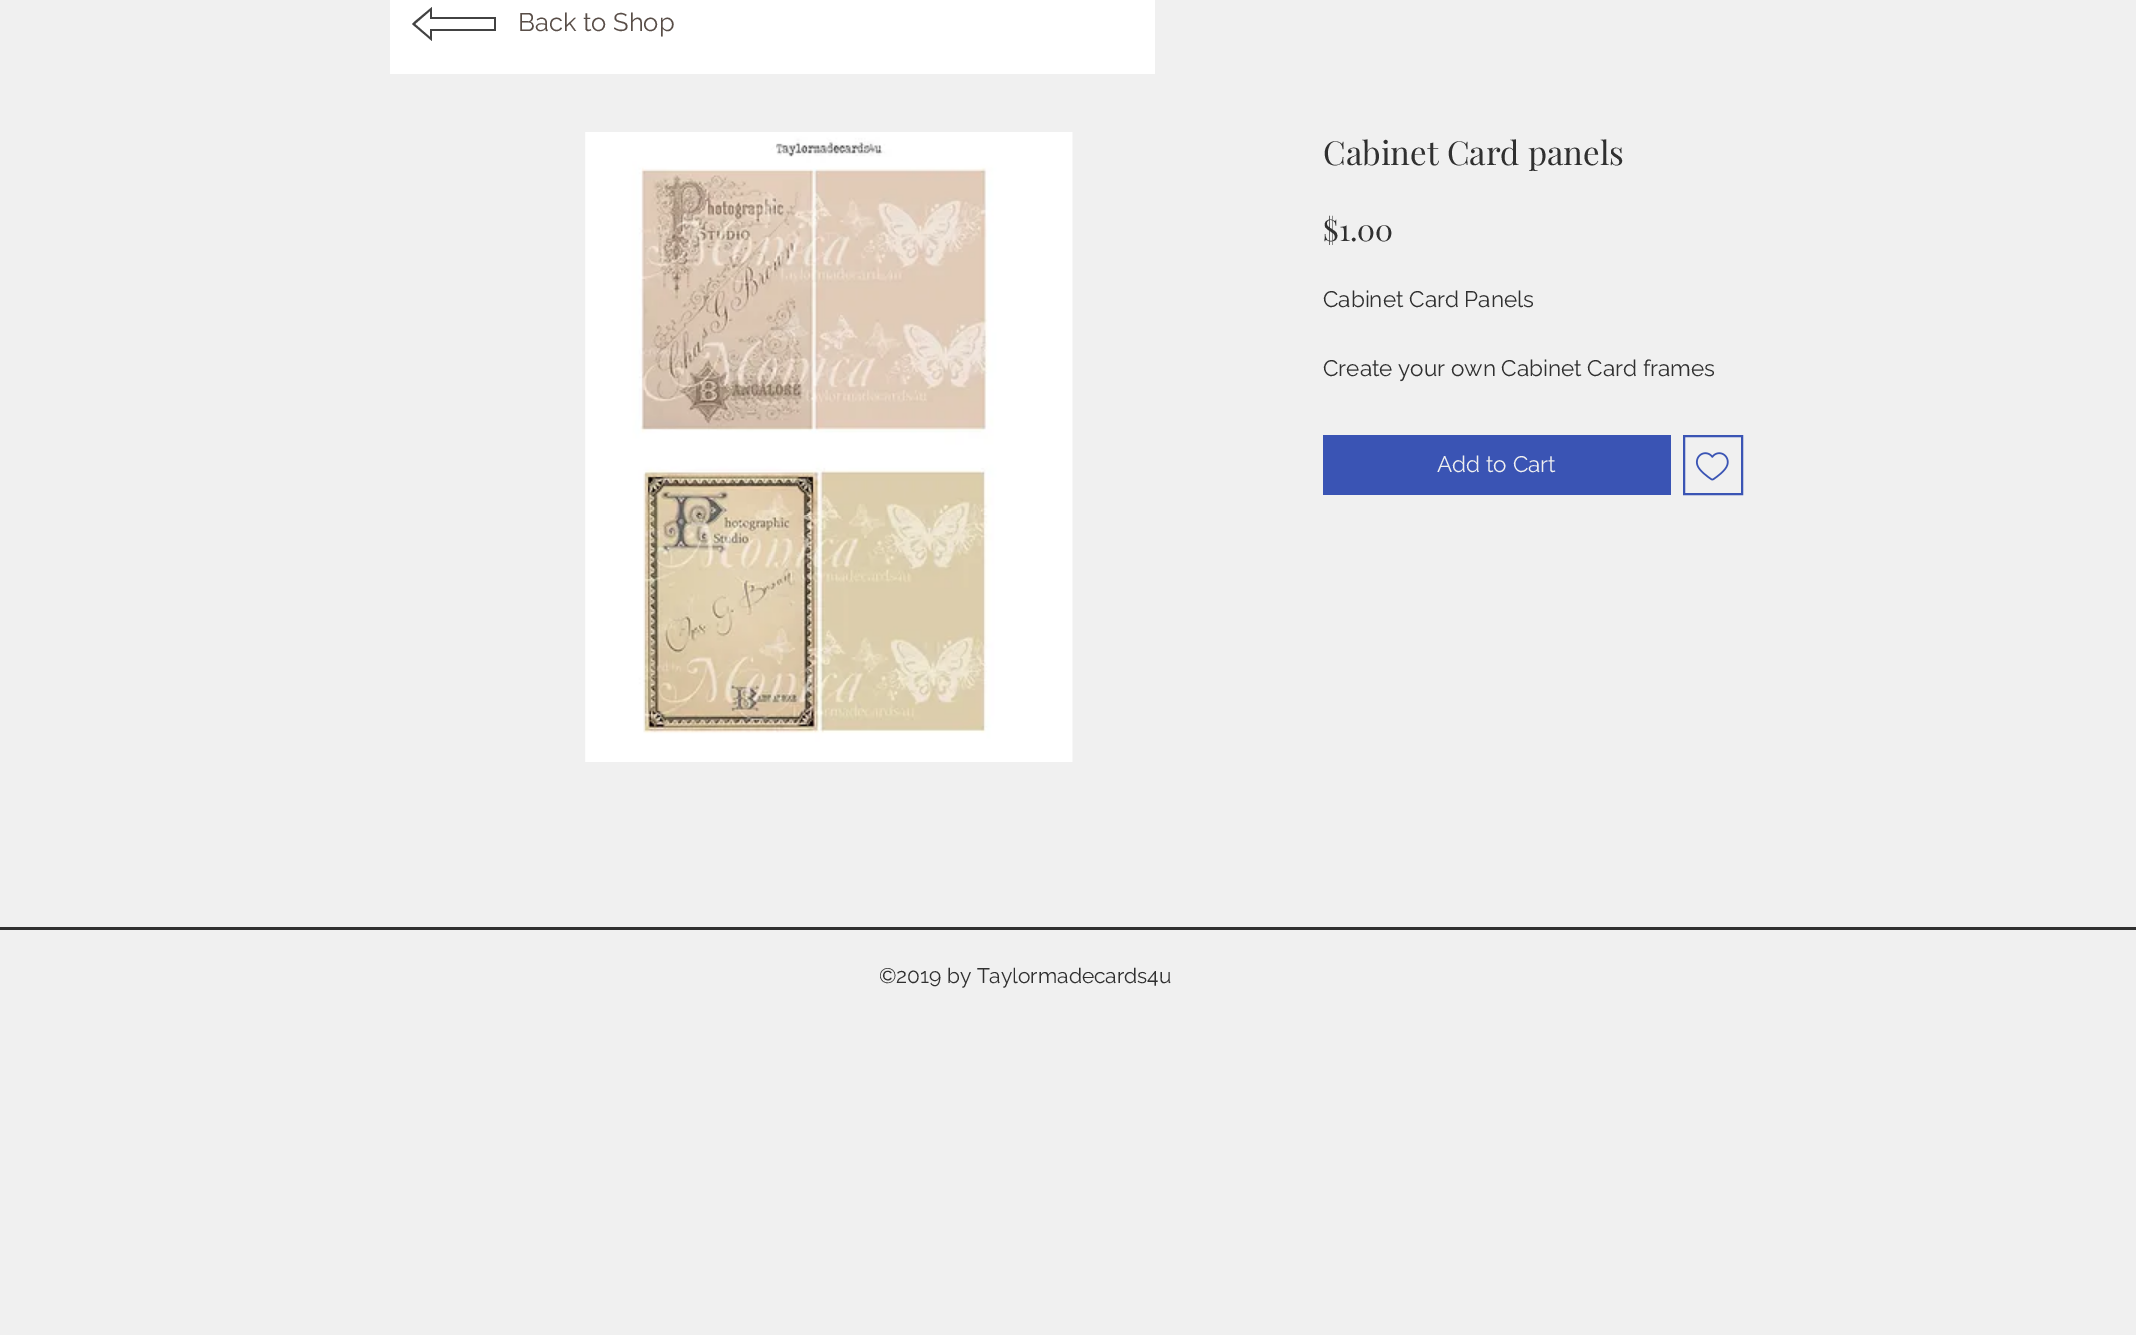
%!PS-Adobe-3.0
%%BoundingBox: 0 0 2136 1335
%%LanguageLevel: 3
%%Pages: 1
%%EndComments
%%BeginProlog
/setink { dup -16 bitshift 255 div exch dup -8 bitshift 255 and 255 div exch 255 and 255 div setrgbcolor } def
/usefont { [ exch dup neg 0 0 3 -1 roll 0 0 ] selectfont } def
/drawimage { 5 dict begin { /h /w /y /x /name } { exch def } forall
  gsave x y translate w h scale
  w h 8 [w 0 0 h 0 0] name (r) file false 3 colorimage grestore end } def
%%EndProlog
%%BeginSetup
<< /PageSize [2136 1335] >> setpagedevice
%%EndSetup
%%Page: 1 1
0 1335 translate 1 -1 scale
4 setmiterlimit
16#F0F0F0 setink
0 0 2136 1335 rectfill
16#FFFFFF setink
390 0 765 74 rectfill
16#424242 setink
414 22 moveto 412 24 lineto 432 41 lineto 432 31 lineto 496 31 lineto 496 17 lineto 432 17 lineto 432 7 lineto closepath 430 19 moveto 494 19 lineto 494 29 lineto 430 29 lineto 430 37 lineto 415 24 lineto 430 11 lineto closepath fill
/Raleway-Regular 25.5 usefont
16#594E48 setink
518 31 moveto (Back to Shop) show
(img1.raw) 585 132 488 630 drawimage
/PlayfairDisplay-Regular 33 usefont
16#303030 setink
1323 165 moveto (Cabinet Card panels) show
/PlayfairDisplay-Regular 30 usefont
1323 241 moveto ($1.00) show
/Raleway-Regular 22.5 usefont
1323 307 moveto (Cabinet Card Panels) show
1323 376 moveto (Create your own Cabinet Card frames) show
16#3A54B4 setink
1323 435 348 60 rectfill
16#F0F0F0 setink
1437 472 moveto (Add to Cart) show
16#3A54B4 setink
2 setlinewidth
1684 436 58 58 rectstroke
(img2.raw) 1695 452 34 29 drawimage
16#303030 setink
0 927 2136 3 rectfill
/Raleway-Regular 21 usefont
879 983 moveto (©2019 by Taylormadecards4u) show
showpage
%%EOF
